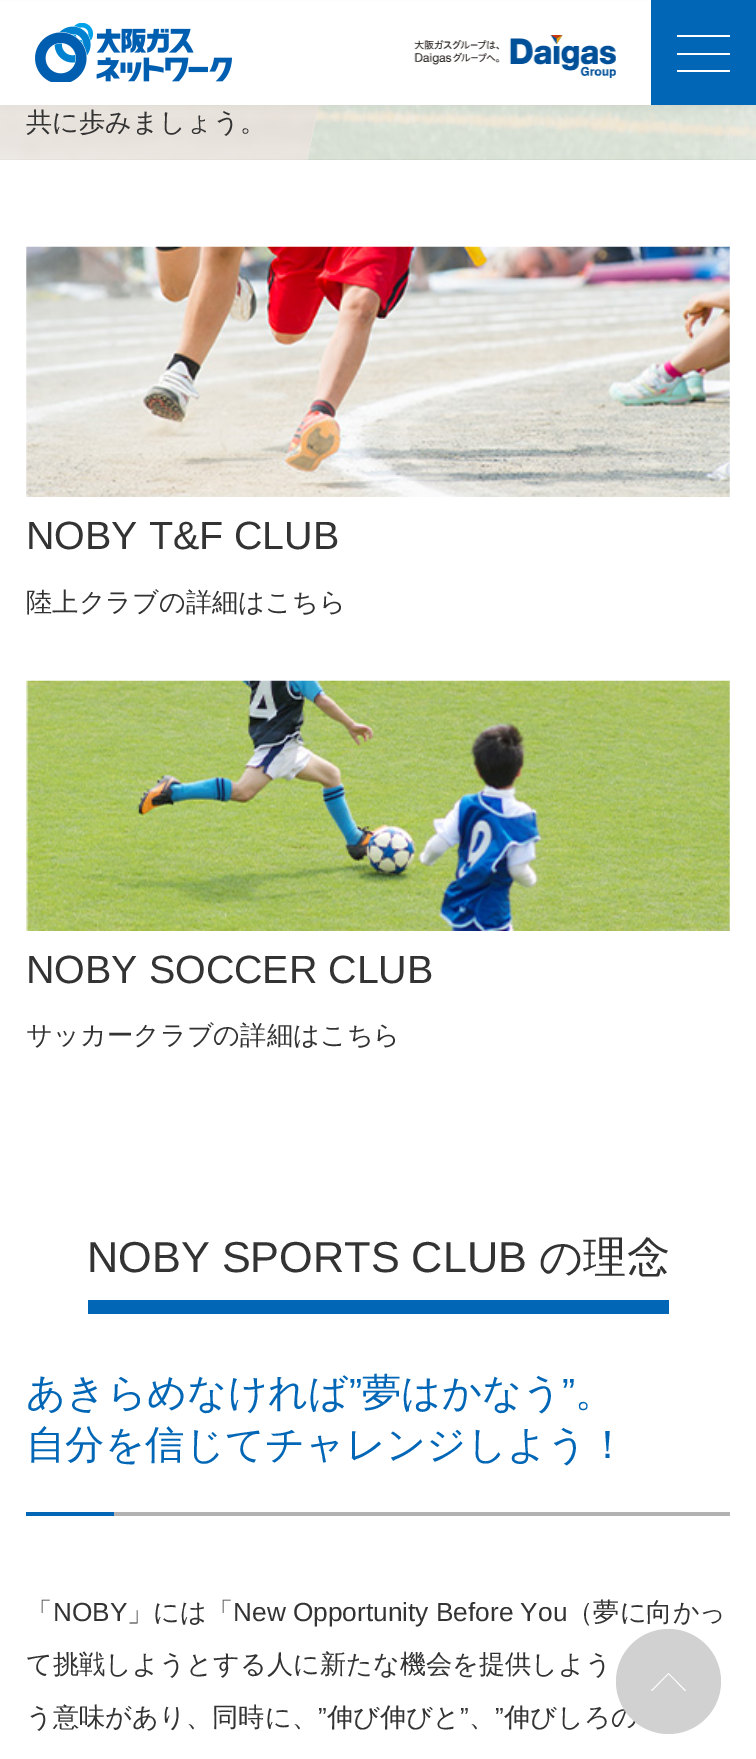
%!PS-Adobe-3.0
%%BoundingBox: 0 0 756 1759
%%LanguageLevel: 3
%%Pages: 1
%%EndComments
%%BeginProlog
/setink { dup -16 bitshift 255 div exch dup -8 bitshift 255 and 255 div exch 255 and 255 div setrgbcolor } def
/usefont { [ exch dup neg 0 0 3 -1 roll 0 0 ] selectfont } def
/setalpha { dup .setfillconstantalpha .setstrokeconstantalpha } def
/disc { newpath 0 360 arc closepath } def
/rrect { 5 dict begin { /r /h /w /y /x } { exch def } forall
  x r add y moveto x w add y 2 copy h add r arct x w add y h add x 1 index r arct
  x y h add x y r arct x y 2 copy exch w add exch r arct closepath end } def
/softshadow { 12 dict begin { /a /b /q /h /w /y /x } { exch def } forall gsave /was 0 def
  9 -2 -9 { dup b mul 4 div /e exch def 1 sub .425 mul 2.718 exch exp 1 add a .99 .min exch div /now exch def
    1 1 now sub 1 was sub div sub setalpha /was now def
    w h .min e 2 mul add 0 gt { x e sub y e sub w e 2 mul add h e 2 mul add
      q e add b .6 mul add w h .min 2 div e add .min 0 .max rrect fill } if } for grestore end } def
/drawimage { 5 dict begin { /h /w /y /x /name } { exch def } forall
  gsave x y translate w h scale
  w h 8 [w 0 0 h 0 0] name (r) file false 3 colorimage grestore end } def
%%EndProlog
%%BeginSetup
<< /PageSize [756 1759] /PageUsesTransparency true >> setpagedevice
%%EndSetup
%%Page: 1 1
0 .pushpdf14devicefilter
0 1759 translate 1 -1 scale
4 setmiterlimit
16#FFFFFF setink
0 0 756 1759 rectfill
(img3.raw) 0 105 756 55 drawimage
16#000000 setink
0 4 756 105 0 5 0.04 softshadow
16#FFFFFF setink
0 1 651 104 rectfill
(img1.raw) 35 23 198 59 drawimage
(img2.raw) 414 35 202 43 drawimage
[
    [651 0 105 105 16#0066B5]
    [677 35 53 2 16#FFFFFF]
    [677 53 53 2 16#FFFFFF]
    [677 70 53 2 16#FFFFFF]
] { aload pop setink rectfill } forall
/WenQuanYiZenHei-Medium 26.25 usefont
16#333333 setink
26 131 moveto (共に歩みましょう。) show
(img4.raw) 26 246 704 251 drawimage
/LiberationSans-Regular 39.4 usefont
26 549 moveto (NOBY T&F CLUB) show
/WenQuanYiZenHei-Medium 26.25 usefont
26 611 moveto (陸上クラブの詳細はこちら) show
(img5.raw) 26 680 704 251 drawimage
/LiberationSans-Regular 39.4 usefont
26 983 moveto (NOBY SOCCER CLUB) show
/WenQuanYiZenHei-Medium 26.25 usefont
26 1044 moveto (サッカークラブの詳細はこちら) show
16#0066B5 setink
88 1300 581 14 rectfill
/LiberationSans-Regular 43.25 usefont
16#333333 setink
87 1272 moveto (NOBY SPORTS CLUB) show
/WenQuanYiZenHei-Medium 43.25 usefont
539 1272 moveto (の理念) show
/WenQuanYiZenHei-Medium 39.4 usefont
16#0066B5 setink
26 1406 moveto (あきらめなければ) show
/LiberationSans-Regular 39.4 usefont
349 1406 moveto (”) show
/WenQuanYiZenHei-Medium 39.4 usefont
362 1406 moveto (夢はかなう) show
/LiberationSans-Regular 39.4 usefont
562 1406 moveto (”) show
/WenQuanYiZenHei-Medium 39.4 usefont
575 1406 moveto (。) show
26 1458 moveto (自分を信じてチャレンジしよう！) show
26 1512 88 4 rectfill
16#B2B2B2 setink
114 1512 616 4 rectfill
/WenQuanYiZenHei-Medium 26.25 usefont
16#333333 setink
26 1621 moveto (「) show
/LiberationSans-Regular 26.25 usefont
53 1621 moveto (NOBY) show
/WenQuanYiZenHei-Medium 26.25 usefont
127 1621 moveto (」には「) show
/LiberationSans-Regular 26.25 usefont
233 1621 moveto (New Opportunity Before You) show
/WenQuanYiZenHei-Medium 26.25 usefont
[
    [(（夢に向かっ) 567 1621]
    [(て挑戦しようとする人に新たな機会を提供しよう) 26 1673]
    [(う意味があり、同時に、) 26 1726]
] { aload pop moveto show } forall
/LiberationSans-Regular 26.25 usefont
318 1726 moveto (”) show
/WenQuanYiZenHei-Medium 26.25 usefont
327 1726 moveto (伸び伸びと) show
/LiberationSans-Regular 26.25 usefont
460 1726 moveto (”) show
495 1726 moveto (”) show
/WenQuanYiZenHei-Medium 26.25 usefont
504 1726 moveto (伸びしろの) show
469 1726 moveto (、) show
16#D1D1D1 setink
668.5 1681.5 52.5 disc fill
16#FFFFFF setink
685 1691 moveto 668.5 1674 lineto 652 1691 lineto 651 1690.5 lineto 668.5 1673 lineto 686 1690.5 lineto closepath fill
.poppdf14devicefilter showpage
%%EOF
